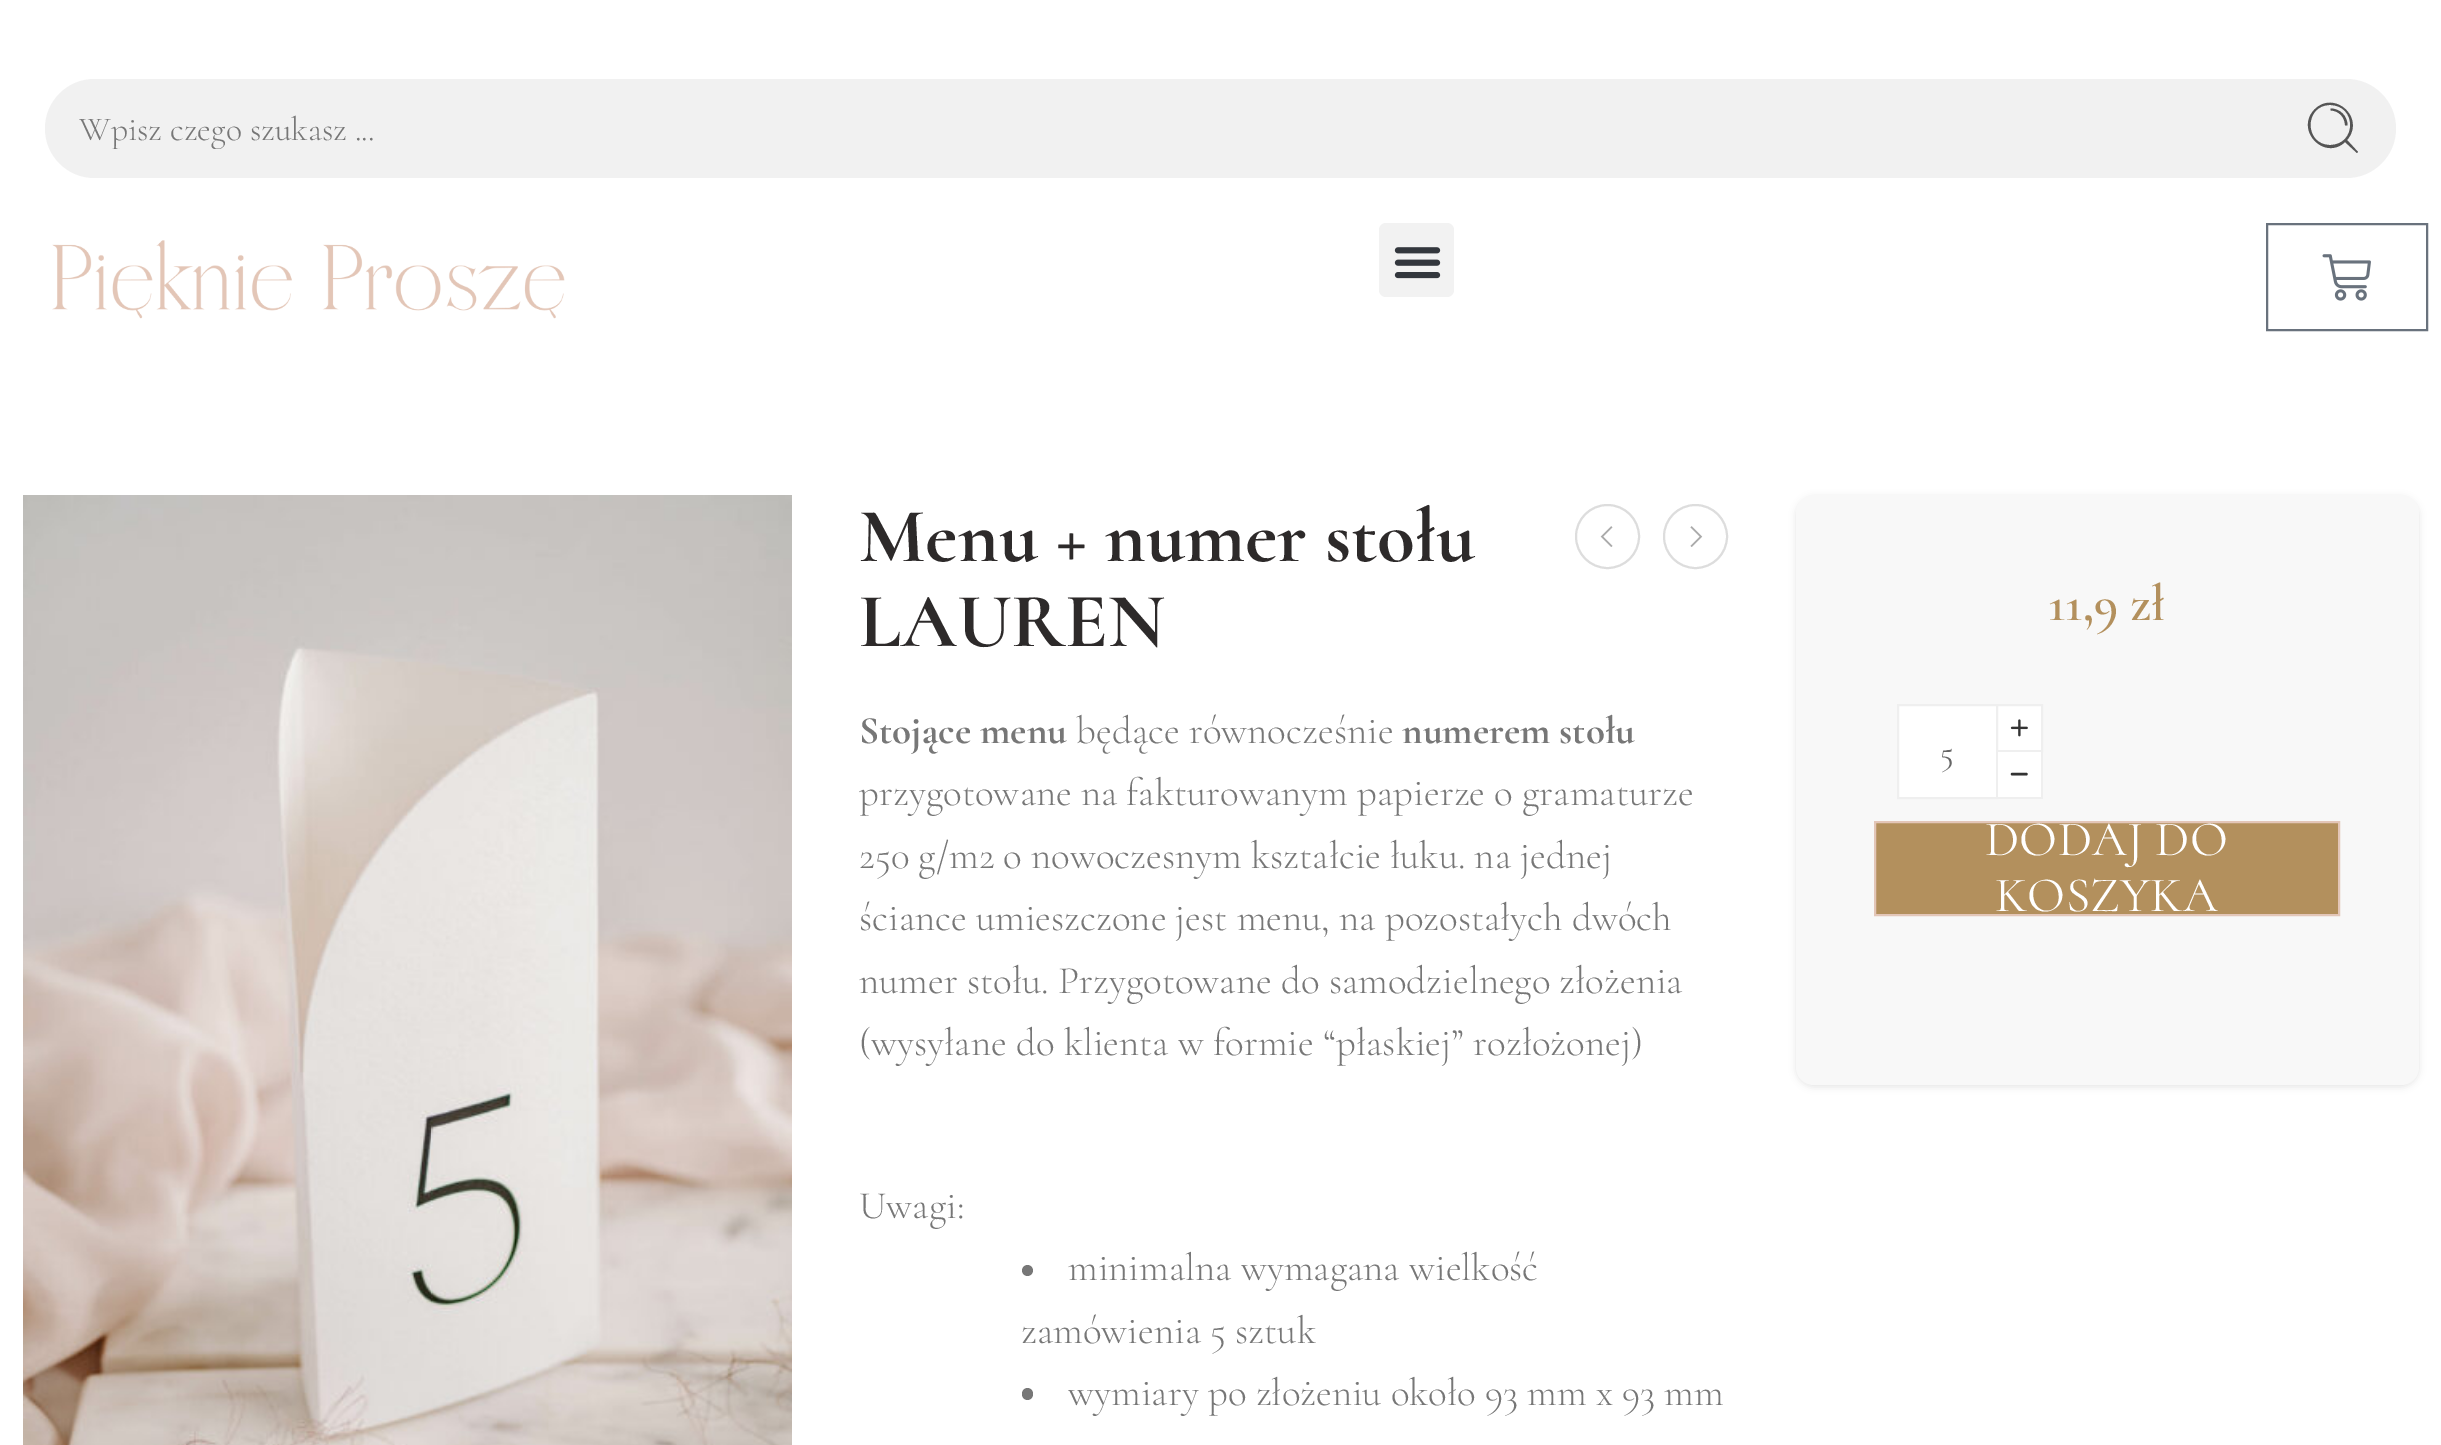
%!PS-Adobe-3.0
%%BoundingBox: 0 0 2441 1445
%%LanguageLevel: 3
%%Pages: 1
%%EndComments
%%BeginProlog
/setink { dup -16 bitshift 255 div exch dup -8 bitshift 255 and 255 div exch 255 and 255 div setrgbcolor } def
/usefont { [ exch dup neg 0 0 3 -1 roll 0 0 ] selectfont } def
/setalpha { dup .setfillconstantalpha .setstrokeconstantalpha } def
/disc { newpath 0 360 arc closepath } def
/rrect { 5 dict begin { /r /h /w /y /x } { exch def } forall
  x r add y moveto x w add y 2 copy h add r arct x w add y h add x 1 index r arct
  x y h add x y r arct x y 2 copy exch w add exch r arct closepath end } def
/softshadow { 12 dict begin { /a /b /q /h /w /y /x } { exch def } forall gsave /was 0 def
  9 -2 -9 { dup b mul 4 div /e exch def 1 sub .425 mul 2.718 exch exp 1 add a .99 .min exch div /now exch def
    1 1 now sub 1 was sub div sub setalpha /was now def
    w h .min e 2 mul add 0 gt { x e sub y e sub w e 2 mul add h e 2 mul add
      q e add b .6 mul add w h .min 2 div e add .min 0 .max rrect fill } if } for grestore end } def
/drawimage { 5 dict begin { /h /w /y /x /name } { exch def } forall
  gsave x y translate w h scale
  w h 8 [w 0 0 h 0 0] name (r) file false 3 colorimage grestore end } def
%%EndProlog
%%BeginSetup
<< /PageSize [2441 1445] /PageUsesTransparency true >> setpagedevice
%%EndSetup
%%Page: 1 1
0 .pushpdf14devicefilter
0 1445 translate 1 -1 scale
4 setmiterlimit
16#FFFFFF setink
0 0 2441 1445 rectfill
16#F1F1F1 setink
45 79 2351 99 49.5 rrect fill
gsave
79 108 2160 41 rectclip
/Cormorant-Light 33.75 usefont
16#777777 setink
79 140 moveto (Wpisz czego szukasz ...) show
grestore
16#555555 setink
2358 152 moveto 2347 140 lineto 2366 118 2334 89 2314 110 curveto 2295 131 2325 161 2345 142 curveto 2357 153 lineto closepath 2330 145 moveto 2304 145 2304 105 2330 105 curveto 2357 105 2357 145 2330 145 curveto closepath fill
2330.5 108.5 moveto 2330.5 110.5 lineto 2338.5 110.5 2345 117 2345 125.5 curveto 2347.5 125.5 lineto 2347.5 116 2340 108.5 2330.5 108.5 curveto closepath fill
(img1.raw) 52 240 513 79 drawimage
16#F2F2F2 setink
1379 223 75 74 7 rrect fill
(img2.raw) 1394 247 47 32 drawimage
16#69727D setink
2 setlinewidth
2267 224 160 106 rectstroke
(img3.raw) 2322 254 49 47 drawimage
(img4.raw) 23 495 769 950 drawimage
/Cormorant-Bold 77.5 usefont
16#2D2A2A setink
859 561 moveto (Menu + numer stołu) show
859 646 moveto (LAUREN) show
16#DDDDDD setink
1607.5 536.5 31.5 disc stroke
(img5.raw) 1600 526 13 21 drawimage
1695.5 536.5 31.5 disc stroke
(img6.raw) 1690 526 13 21 drawimage
/CormorantGaramond-Bold 39 usefont
16#777777 setink
859 743 moveto (Stojące menu) show
/CormorantGaramond-Light 39 usefont
1076 743 moveto (będące równocześnie) show
/CormorantGaramond-Bold 39 usefont
1402 743 moveto (numerem stołu) show
/CormorantGaramond-Light 39 usefont
[
    [(przygotowane na fakturowanym papierze o gramaturze) 859 805]
    [(250 g/m2 o nowoczesnym kształcie łuku. na jednej) 859 868]
    [(ściance umieszczone jest menu, na pozostałych dwóch) 859 930]
    [(numer stołu. Przygotowane do samodzielnego złożenia) 859 993]
    [(\(wysyłane do klienta w formie “płaskiej” rozłożonej\)) 859 1055]
    [(Uwagi:) 859 1218]
] { aload pop moveto show } forall
1027.5 1270.5 5.5 disc fill
1068 1280 moveto (minimalna wymagana wielkość) show
1021 1343 moveto (zamówienia 5 sztuk) show
1022 1388 11 12 5.5 rrect fill
1068 1405 moveto (wymiary po złożeniu około 93 mm x 93 mm) show
16#000000 setink
1796 497 623 590 18 3.5 0.1 softshadow
16#F8F8F8 setink
1796 495 623 590 18 rrect fill
/Cormorant-SemiBold 52 usefont
16#B3905D setink
2048 620 moveto (11,9 zł) show
16#FFFFFF setink
1898 705 moveto 1997 705 lineto 1997 798 lineto 1898 798 lineto closepath gsave fill grestore
16#EFEFEF setink
stroke
16#FFFFFF setink
1997 705 moveto 2042 705 lineto 2042 751 lineto 1997 751 lineto closepath gsave fill grestore
16#EFEFEF setink
stroke
(img7.raw) 2010 719 18 18 drawimage
/Cormorant-Regular 33.75 usefont
16#666666 setink
1940 763 moveto (5) show
[
    [1998 752 43 45 16#FFFFFF]
    [2041 752 2 47 16#EFEFEF]
    [1996 797 47 2 16#EFEFEF]
] { aload pop setink rectfill } forall
16#333333 setink
2.4 setlinewidth
1 setlinecap
1 setlinejoin
2012 774 moveto 2026.5 774 lineto stroke
16#B3905D setink
1875 822 moveto 2339 822 lineto 2339 915 lineto 1875 915 lineto closepath gsave fill grestore
16#E3C6B8 setink
2 setlinewidth
0 setlinecap
0 setlinejoin
stroke
/Cormorant-Regular 49.5 usefont
16#FFFFFF setink
1985 855 moveto 0.25 0 (DODAJ DO) ashow
1995 911 moveto 0.25 0 (KOSZYKA) ashow
.poppdf14devicefilter showpage
%%EOF
